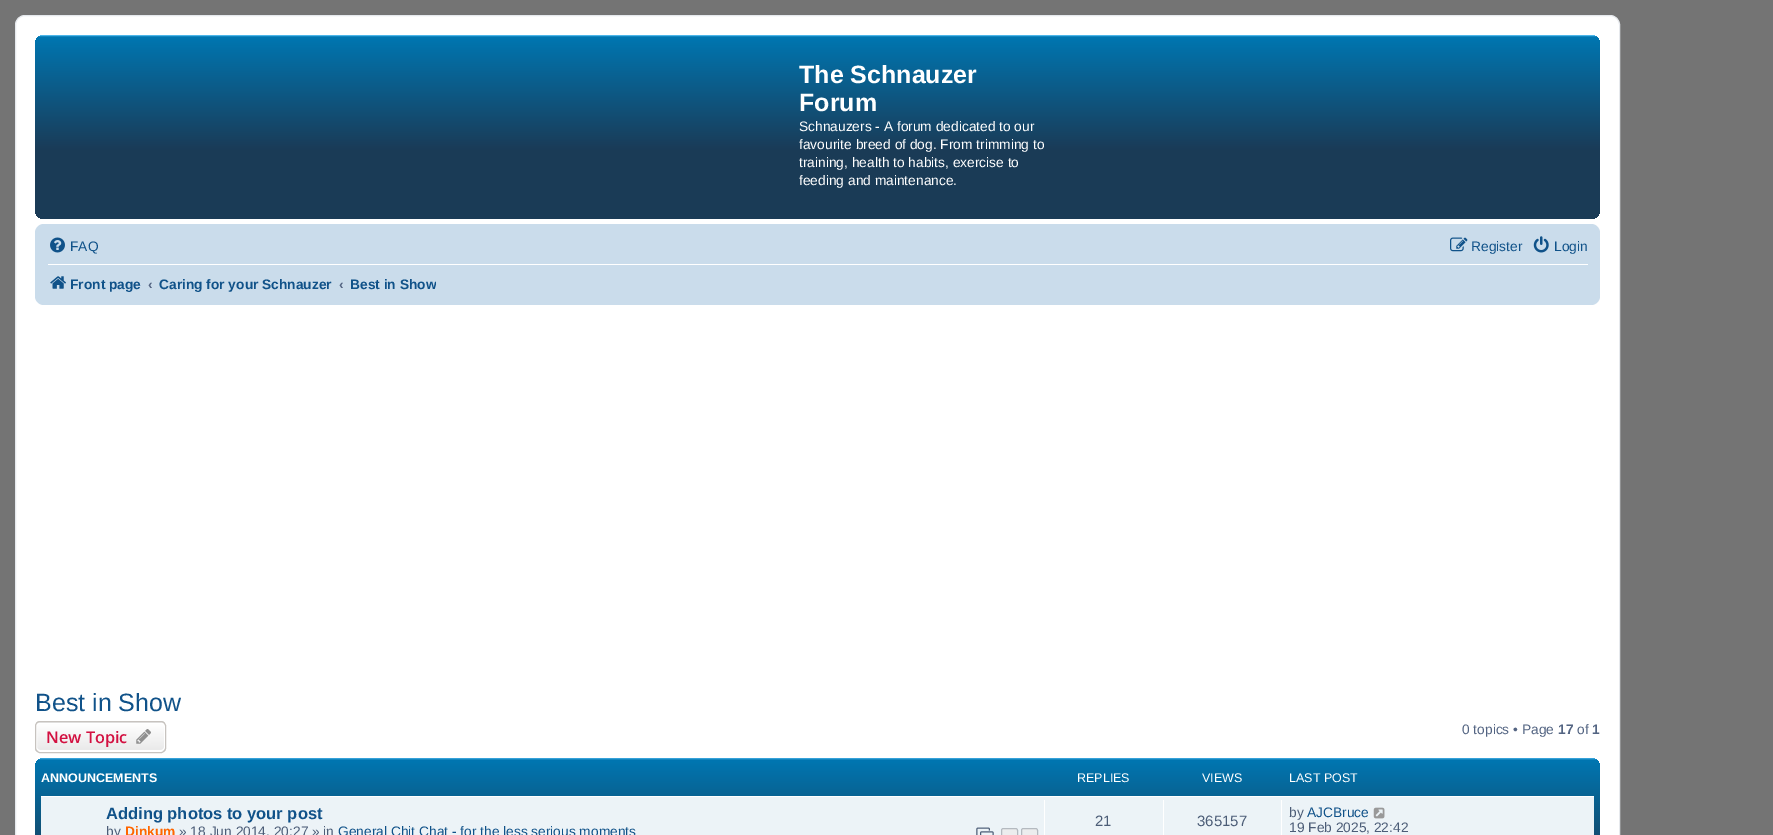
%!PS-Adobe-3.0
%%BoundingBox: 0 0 1773 835
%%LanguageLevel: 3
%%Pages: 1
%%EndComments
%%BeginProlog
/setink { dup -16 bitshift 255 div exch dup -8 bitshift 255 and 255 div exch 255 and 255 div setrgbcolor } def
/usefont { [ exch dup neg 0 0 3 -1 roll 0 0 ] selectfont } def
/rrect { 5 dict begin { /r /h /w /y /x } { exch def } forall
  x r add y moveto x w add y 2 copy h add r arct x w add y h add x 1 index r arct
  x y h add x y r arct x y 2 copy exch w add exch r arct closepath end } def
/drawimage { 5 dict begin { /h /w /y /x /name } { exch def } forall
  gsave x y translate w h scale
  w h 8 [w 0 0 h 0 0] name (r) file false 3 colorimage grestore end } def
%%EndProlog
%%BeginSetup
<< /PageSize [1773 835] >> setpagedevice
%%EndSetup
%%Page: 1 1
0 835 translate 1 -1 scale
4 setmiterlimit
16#747474 setink
0 0 1773 835 rectfill
16#FFFFFF setink
15.5 15.5 1604 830 9.5 rrect gsave fill grestore
16#E6E9ED setink
stroke
gsave 35 35 1565 184 9 rrect clip newpath
<< /ShadingType 2 /ColorSpace /DeviceRGB /Coords [818 35 818 219] /Extend [true true] /Function << /FunctionType 3 /Domain [0 1] /Functions [<< /FunctionType 2 /Domain [0 1] /C0 [0.416 0.808 1] /C1 [0 0.463 0.694] /N 1 >> << /FunctionType 2 /Domain [0 1] /C0 [0 0.463 0.694] /C1 [0.102 0.231 0.337] /N 1 >> << /FunctionType 2 /Domain [0 1] /C0 [0.102 0.231 0.337] /C1 [0.102 0.231 0.337] /N 1 >>] /Bounds [0.01 0.63] /Encode [0 1 0 1 0 1] >> >> shfill grestore
/LiberationSans-Bold 25 usefont
16#FFFFFF setink
799 83 moveto (The Schnauzer) show
799 111 moveto (Forum) show
/LiberationSans-Regular 13.75 usefont
[
    [(Schnauzers - A forum dedicated to our) 799 131]
    [(favourite breed of dog. From trimming to) 799 149]
    [(training, health to habits, exercise to) 799 167]
    [(feeding and maintenance.) 799 185]
] { aload pop moveto show } forall
16#CADCEB setink
35 224 1565 81 9 rrect fill
(img1.raw) 50 237 15 16 drawimage
16#105289 setink
70 251 moveto (FAQ) show
(img2.raw) 1450 237 18 15 drawimage
1471 251 moveto (Register) show
(img3.raw) 1533 236 16 17 drawimage
1554 251 moveto (Login) show
16#FFFFFF setink
48 264 1540 1 rectfill
(img4.raw) 50 276 16 13 drawimage
/LiberationSans-Bold 13.75 usefont
16#105289 setink
70 289 moveto (Front page) show
16#536482 setink
148 289 moveto (‹) show
16#105289 setink
159 289 moveto (Caring for your Schnauzer) show
16#536482 setink
339 289 moveto (‹) show
gsave
350 269 86 30 rectclip
16#105289 setink
350 289 moveto (Best in Show) show
grestore
/LiberationSans-Regular 25 usefont
16#105289 setink
35 711 moveto (Best in Show) show
gsave
35 721 131 32 5 rrect clip newpath
gsave 35 721 moveto 166 721 lineto 166 723 lineto 35 723 lineto closepath clip newpath
<< /ShadingType 2 /ColorSpace /DeviceRGB /Coords [101 694 101 723] /Extend [true true] /Function << /FunctionType 2 /Domain [0 1] /C0 [1 1 1] /C1 [0.914 0.914 0.914] /N 1 >> >> shfill grestore
gsave 35 723 moveto 166 723 lineto 166 751 lineto 35 751 lineto closepath clip newpath
<< /ShadingType 2 /ColorSpace /DeviceRGB /Coords [101 723 101 751] /Extend [true true] /Function << /FunctionType 2 /Domain [0 1] /C0 [1 1 1] /C1 [0.914 0.914 0.914] /N 1 >> >> shfill grestore
grestore
16#FFFFFF setink
36.5 723.5 128 27 3.5 rrect stroke
16#C7C3BF setink
35.5 721.5 130 31 4.5 rrect stroke
/OpenSans-SemiBold 16.25 usefont
16#D31141 setink
46 743 moveto (New Topic) show
(img5.raw) 136 729 15 15 drawimage
/LiberationSans-Regular 13.75 usefont
16#536482 setink
1462 734 moveto (0 topics • Page) show
/LiberationSans-Bold 13.75 usefont
1558 734 moveto (17) show
/LiberationSans-Regular 13.75 usefont
1577 734 moveto (of) show
/LiberationSans-Bold 13.75 usefont
1592 734 moveto (1) show
gsave 35 758 1565 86 9 rrect clip newpath
<< /ShadingType 2 /ColorSpace /DeviceRGB /Coords [818 757 818 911] /Extend [true true] /Function << /FunctionType 3 /Domain [0 1] /Functions [<< /FunctionType 2 /Domain [0 1] /C0 [0.416 0.808 1] /C1 [0 0.463 0.694] /N 1 >> << /FunctionType 2 /Domain [0 1] /C0 [0 0.463 0.694] /C1 [0.102 0.231 0.337] /N 1 >> << /FunctionType 2 /Domain [0 1] /C0 [0.102 0.231 0.337] /C1 [0.102 0.231 0.337] /N 1 >>] /Bounds [0.02 0.75] /Encode [0 1 0 1 0 1] >> >> shfill grestore
/LiberationSans-Bold 12.5 usefont
16#FFFFFF setink
41 782 moveto (ANNOUNCEMENTS) show
/LiberationSans-Regular 12.5 usefont
[
    [(REPLIES) 1077 782]
    [(VIEWS) 1202 782]
    [(LAST POST) 1289 782]
] { aload pop moveto show } forall
16#ECF3F7 setink
41 797 1553 38 rectfill
16#FFFFFF setink
41 796 1553 1 rectfill
/LiberationSans-Bold 16.5 usefont
16#105289 setink
106 819 moveto (Adding photos to your post) show
/LiberationSans-Regular 13.75 usefont
16#4C5D77 setink
106 836 moveto (by) show
/LiberationSans-Bold 13.75 usefont
16#FF6600 setink
125 836 moveto (Dinkum) show
/LiberationSans-Regular 13.75 usefont
16#4C5D77 setink
179 836 moveto (» 18 Jun 2014, 20:27 » in) show
16#105289 setink
338 836 moveto (General Chit Chat - for the less serious moments) show
(img6.raw) 976 827 18 8 drawimage
16#ECEDEE setink
1001.5 828.5 16 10 2 rrect gsave fill grestore
16#B4BAC0 setink
stroke
16#ECEDEE setink
1021.5 828.5 16 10 2 rrect gsave fill grestore
16#B4BAC0 setink
stroke
16#FFFFFF setink
1044 800 1 35 rectfill
/LiberationSans-Regular 15 usefont
16#4C5D77 setink
1095 826 moveto (21) show
16#FFFFFF setink
1163 800 1 35 rectfill
16#4C5D77 setink
1197 826 moveto (365157) show
16#FFFFFF setink
1281 800 1 35 rectfill
/LiberationSans-Regular 13.75 usefont
16#4C5D77 setink
1289 817 moveto (by) show
16#105289 setink
1307 817 moveto (AJCBruce) show
(img7.raw) 1373 807 12 12 drawimage
16#4C5D77 setink
1289 832 moveto (19 Feb 2025, 22:42) show
showpage
%%EOF
